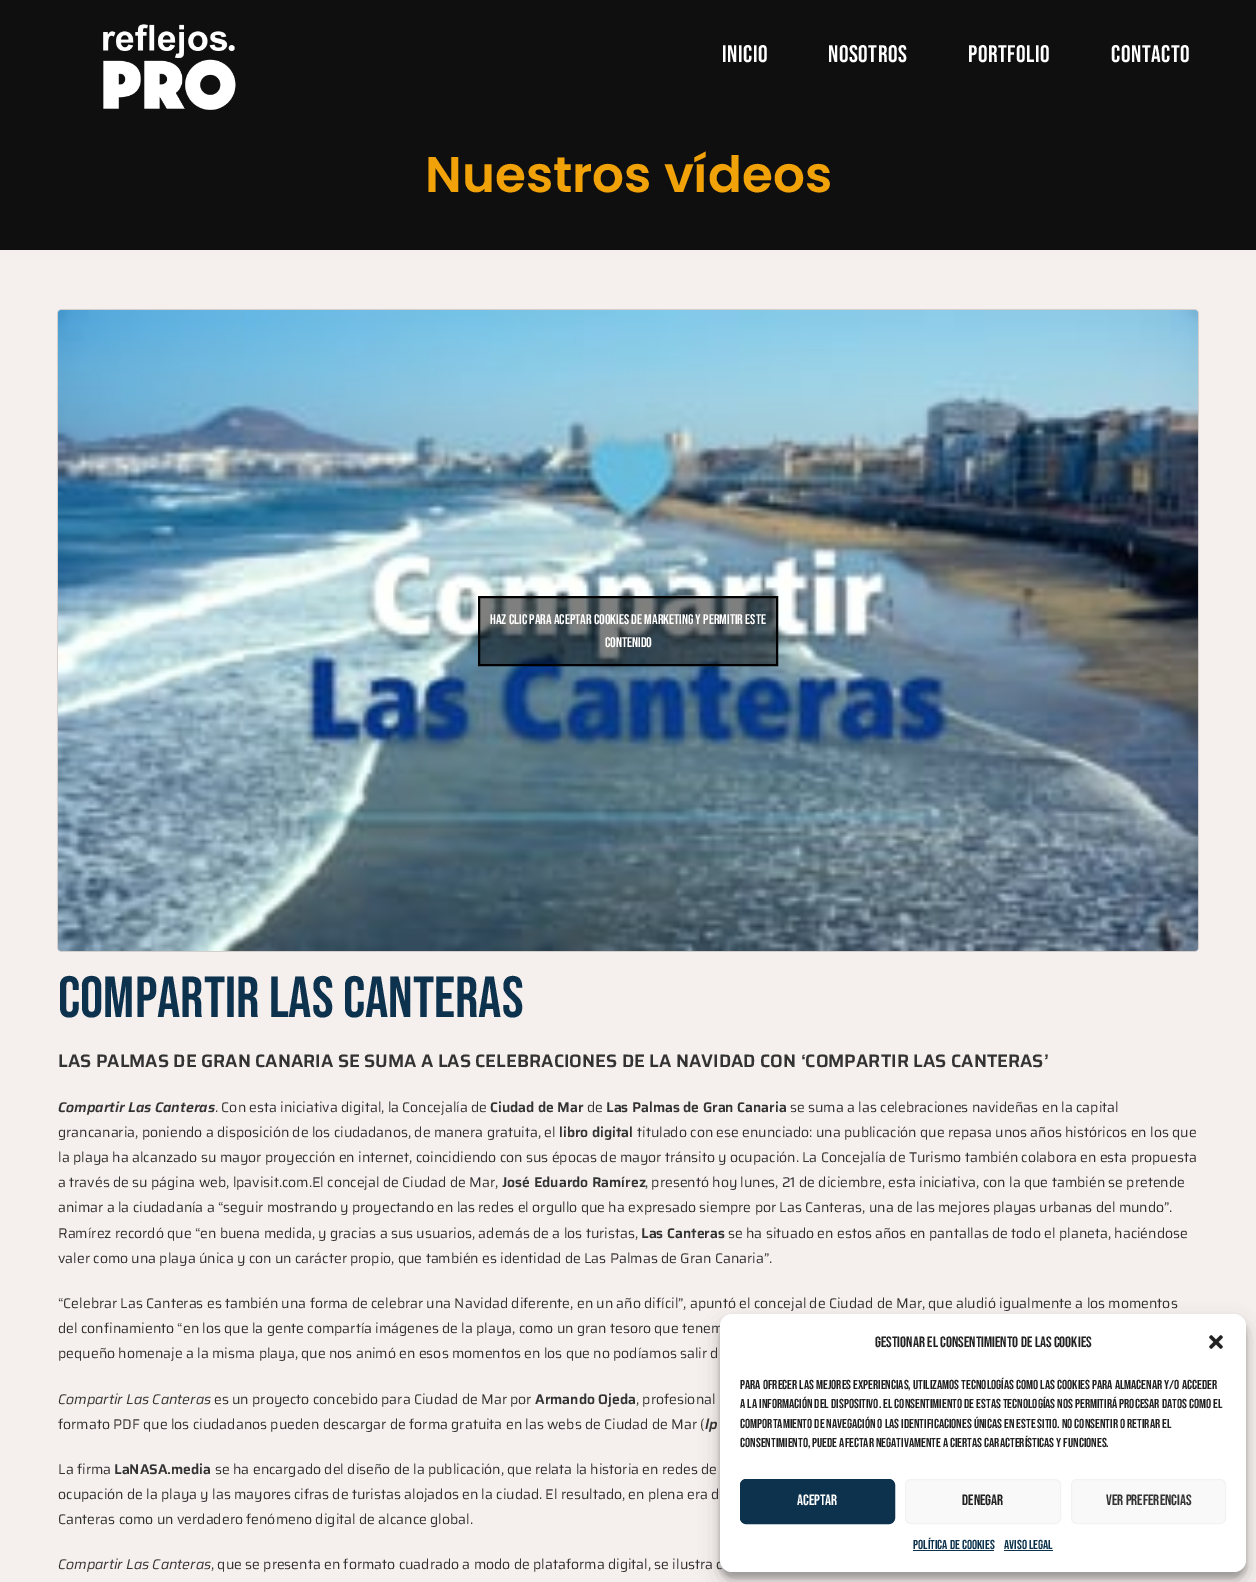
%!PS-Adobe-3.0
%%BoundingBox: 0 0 1256 1582
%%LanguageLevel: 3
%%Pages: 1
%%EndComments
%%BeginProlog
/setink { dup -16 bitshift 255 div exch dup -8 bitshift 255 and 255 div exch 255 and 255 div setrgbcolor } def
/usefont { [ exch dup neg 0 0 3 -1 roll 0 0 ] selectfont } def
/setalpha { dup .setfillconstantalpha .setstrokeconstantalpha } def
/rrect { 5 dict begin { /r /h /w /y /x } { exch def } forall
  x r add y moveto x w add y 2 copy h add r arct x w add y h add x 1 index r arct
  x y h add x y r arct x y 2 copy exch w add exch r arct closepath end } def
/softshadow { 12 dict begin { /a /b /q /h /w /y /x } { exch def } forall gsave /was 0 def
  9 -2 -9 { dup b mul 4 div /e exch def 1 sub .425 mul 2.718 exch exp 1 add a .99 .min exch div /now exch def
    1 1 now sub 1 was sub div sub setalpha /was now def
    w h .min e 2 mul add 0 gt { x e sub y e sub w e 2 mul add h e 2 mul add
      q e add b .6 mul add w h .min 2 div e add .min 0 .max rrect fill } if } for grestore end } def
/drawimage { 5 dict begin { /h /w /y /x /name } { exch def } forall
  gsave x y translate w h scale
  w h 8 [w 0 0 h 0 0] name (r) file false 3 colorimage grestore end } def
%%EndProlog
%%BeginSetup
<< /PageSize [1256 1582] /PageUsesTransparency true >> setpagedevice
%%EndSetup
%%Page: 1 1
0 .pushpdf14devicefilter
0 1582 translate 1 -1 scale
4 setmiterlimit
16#F5EFED setink
0 0 1256 1582 rectfill
16#0F0F0F setink
0 0 1256 250 rectfill
(img1.raw) 103 24 133 86 drawimage
/BebasNeue-Regular 24 usefont
16#FFFFFF setink
722 62 moveto 0.5 0 (Inicio) ashow
828 62 moveto 0.5 0 (Nosotros) ashow
968 62 moveto 0.5 0 (Portfolio) ashow
1111 62 moveto 0.5 0 (Contacto) ashow
/Poppins-SemiBold 50 usefont
16#F1A208 setink
425 192 moveto (Nuestros vídeos) show
gsave
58 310 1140 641 rectclip
16#000000 setink
58 311 1140 641 3 5 0.15 softshadow
grestore
16#000000 setink
58 310 1140 641 3 0.5 0.5 softshadow
(img2.raw) 58 310 1140 641 drawimage
0.5 setalpha
479 597 moveto 777 597 lineto 777 665 lineto 479 665 lineto closepath fill
1 setalpha
2 setlinewidth
479 597 moveto 777 597 lineto 777 665 lineto 479 665 lineto closepath stroke
/BebasNeue-Regular 14 usefont
16#FFFFFF setink
490 624 moveto (Haz clic para aceptar cookies de marketing y permitir este) show
605 647 moveto (contenido) show
/BebasNeue-Regular 58 usefont
16#0D324D setink
58 1017 moveto (Compartir Las Canteras) show
/Saira-SemiBold 18 usefont
16#333333 setink
58 1067 moveto (LAS PALMAS DE GRAN CANARIA SE SUMA A LAS CELEBRACIONES DE LA NAVIDAD CON ‘COMPARTIR LAS CANTERAS’) show
/Saira-SemiBoldItalic 14 usefont
58 1112 moveto (Compartir Las Canteras) show
/Saira-Regular 14 usefont
215 1112 moveto (. Con esta iniciativa digital, la Concejalía de) show
/Saira-SemiBold 14 usefont
490 1112 moveto (Ciudad de Mar) show
/Saira-Regular 14 usefont
587 1112 moveto (de) show
/Saira-SemiBold 14 usefont
606 1112 moveto (Las Palmas de Gran Canaria) show
/Saira-Regular 14 usefont
790 1112 moveto (se suma a las celebraciones navideñas en la capital) show
58 1137 moveto (grancanaria, poniendo a disposición de los ciudadanos, de manera gratuita, el) show
/Saira-SemiBold 14 usefont
559 1137 moveto (libro digital) show
/Saira-Regular 14 usefont
[
    [(titulado con ese enunciado: una publicación que repasa unos años históricos en los que) 637 1137]
    [(la playa ha alcanzado su mayor proyección en internet, coincidiendo con sus épocas de mayor tránsito y ocupación. La Concejalía de Turismo también colabora en esta propuesta) 58 1162]
    [(a través de su página web, lpavisit.com.El concejal de Ciudad de Mar,) 58 1187]
] { aload pop moveto show } forall
/Saira-SemiBold 14 usefont
502 1187 moveto (José Eduardo Ramírez) show
/Saira-Regular 14 usefont
[
    [(, presentó hoy lunes, 21 de diciembre, esta iniciativa, con la que también se pretende) 645 1187]
    [(animar a la ciudadanía a “seguir mostrando y proyectando en las redes el orgullo que ha expresado siempre por Las Canteras, una de las mejores playas urbanas del mundo”.) 58 1212]
    [(Ramírez recordó que “en buena medida, y gracias a sus usuarios, además de a los turistas,) 58 1238]
] { aload pop moveto show } forall
/Saira-SemiBold 14 usefont
641 1238 moveto (Las Canteras) show
/Saira-Regular 14 usefont
[
    [(se ha situado en estos años en pantallas de todo el planeta, haciéndose) 728 1238]
    [(valer como una playa única y con un carácter propio, que también es identidad de Las Palmas de Gran Canaria”.) 58 1263]
    [(“Celebrar Las Canteras es también una forma de celebrar una Navidad diferente, en un año difícil”, apuntó el concejal de Ciudad de Mar, que aludió igualmente a los momentos) 58 1308]
    [(del confinamiento “en los que la gente compartía imágenes de la playa, como un gran tesoro que tenem) 58 1333]
    [(pequeño homenaje a la misma playa, que nos animó en esos momentos en los que no podíamos salir d) 58 1358]
] { aload pop moveto show } forall
/Saira-Italic 14 usefont
58 1404 moveto (Compartir Las Canteras) show
/Saira-Regular 14 usefont
214 1404 moveto (es un proyecto concebido para Ciudad de Mar por) show
/Saira-SemiBold 14 usefont
535 1404 moveto (Armando Ojeda) show
/Saira-Regular 14 usefont
636 1404 moveto (, profesional) show
58 1429 moveto (formato PDF que los ciudadanos pueden descargar de forma gratuita en las webs de Ciudad de Mar \() show
/Saira-SemiBoldItalic 14 usefont
705 1429 moveto (lp) show
/Saira-Regular 14 usefont
58 1474 moveto (La firma) show
/Saira-SemiBold 14 usefont
114 1474 moveto (LaNASA.media) show
/Saira-Regular 14 usefont
[
    [(se ha encargado del diseño de la publicación, que relata la historia en redes de) 215 1474]
    [(ocupación de la playa y las mayores cifras de turistas alojados en la ciudad. El resultado, en plena era d) 58 1499]
    [(Canteras como un verdadero fenómeno digital de alcance global.) 58 1524]
] { aload pop moveto show } forall
/Saira-Italic 14 usefont
58 1569 moveto (Compartir Las Canteras) show
/Saira-Regular 14 usefont
211 1569 moveto (, que se presenta en formato cuadrado a modo de plataforma digital, se ilustra c) show
16#000000 setink
720 1320 526 258 12 3 0.23 softshadow
720 1324 526 258 12 10 0.19 softshadow
16#FFFFFF setink
720 1314 526 258 12 rrect fill
/BebasNeue-Regular 15 usefont
16#222222 setink
875 1347 moveto (Gestionar el consentimiento de las cookies) show
(img3.raw) 1209 1335 14 14 drawimage
/BebasNeue-Regular 13 usefont
[
    [(Para ofrecer las mejores experiencias, utilizamos tecnologías como las cookies para almacenar y/o acceder) 740 1389]
    [(a la información del dispositivo. El consentimiento de estas tecnologías nos permitirá procesar datos como el) 740 1408]
    [(comportamiento de navegación o las identificaciones únicas en este sitio. No consentir o retirar el) 740 1428]
    [(consentimiento, puede afectar negativamente a ciertas características y funciones.) 740 1447]
] { aload pop moveto show } forall
16#0D324D setink
740.5 1479.5 154 44 5.5 rrect gsave fill grestore
1 setlinewidth
stroke
/BebasNeue-Regular 15 usefont
16#FFFFFF setink
797 1505 moveto (Aceptar) show
16#F9F9F9 setink
905.5 1479.5 155 44 5.5 rrect gsave fill grestore
16#F2F2F2 setink
stroke
16#222222 setink
962 1505 moveto (Denegar) show
16#F9F9F9 setink
1071.5 1479.5 154 44 5.5 rrect gsave fill grestore
16#F2F2F2 setink
stroke
16#333333 setink
1106 1505 moveto (Ver preferencias) show
/BebasNeue-Regular 13 usefont
16#0D324D setink
913 1549 moveto (Política de cookies) show
913 1550 81 1 rectfill
1004 1549 moveto (Aviso Legal) show
1004 1550 49 1 rectfill
.poppdf14devicefilter showpage
%%EOF
